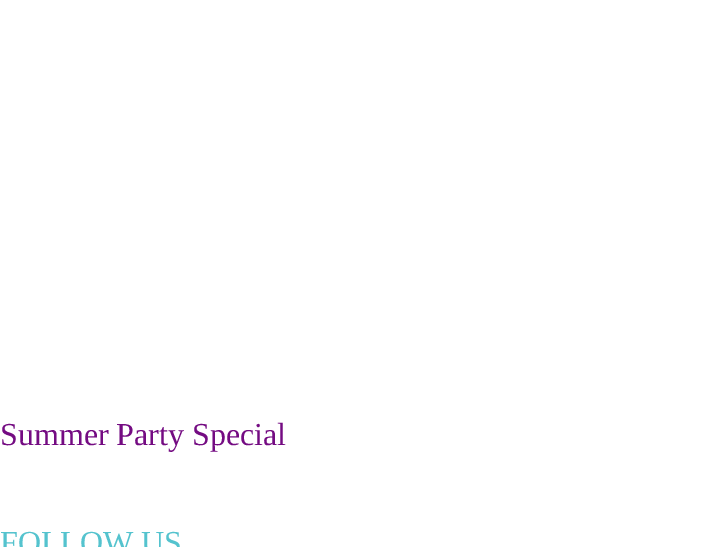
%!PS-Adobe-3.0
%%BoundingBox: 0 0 726 547
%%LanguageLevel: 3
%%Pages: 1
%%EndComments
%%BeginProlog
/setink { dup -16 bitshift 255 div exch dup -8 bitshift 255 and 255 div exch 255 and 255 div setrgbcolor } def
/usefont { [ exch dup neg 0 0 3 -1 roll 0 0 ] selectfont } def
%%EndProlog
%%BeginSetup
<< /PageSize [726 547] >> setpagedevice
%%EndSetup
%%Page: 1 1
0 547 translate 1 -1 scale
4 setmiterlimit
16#FFFFFF setink
0 0 726 547 rectfill
/LiberationSerif-Regular 32 usefont
16#740B82 setink
0 445 moveto (Summer Party Special) show
16#54C3CE setink
0 553 moveto (FOLLOW US) show
showpage
%%EOF
